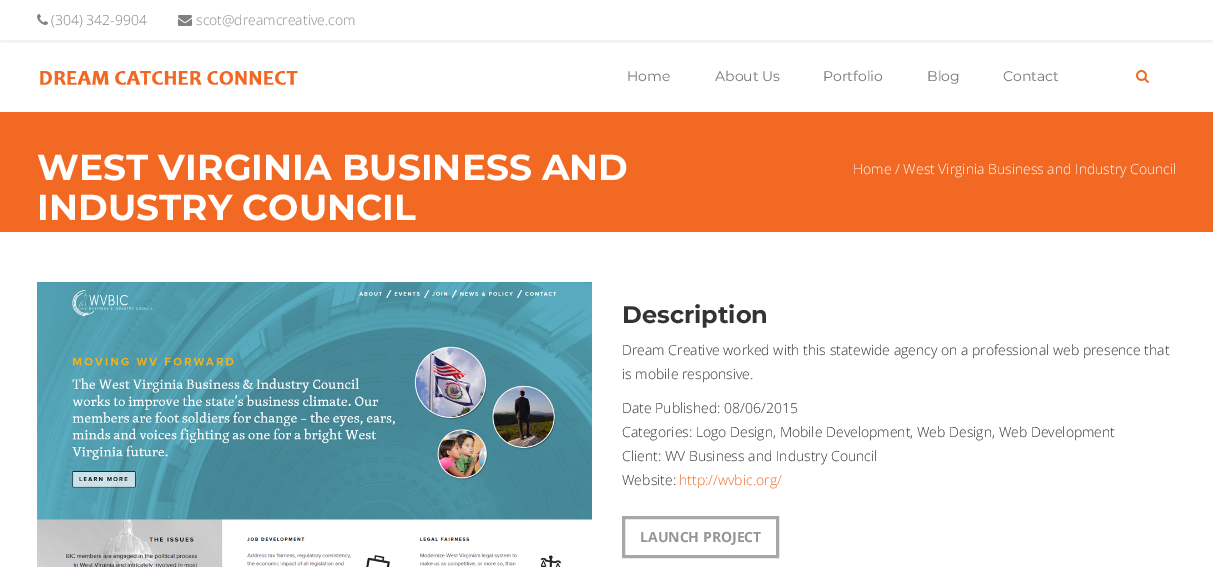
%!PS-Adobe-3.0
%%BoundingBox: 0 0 1213 567
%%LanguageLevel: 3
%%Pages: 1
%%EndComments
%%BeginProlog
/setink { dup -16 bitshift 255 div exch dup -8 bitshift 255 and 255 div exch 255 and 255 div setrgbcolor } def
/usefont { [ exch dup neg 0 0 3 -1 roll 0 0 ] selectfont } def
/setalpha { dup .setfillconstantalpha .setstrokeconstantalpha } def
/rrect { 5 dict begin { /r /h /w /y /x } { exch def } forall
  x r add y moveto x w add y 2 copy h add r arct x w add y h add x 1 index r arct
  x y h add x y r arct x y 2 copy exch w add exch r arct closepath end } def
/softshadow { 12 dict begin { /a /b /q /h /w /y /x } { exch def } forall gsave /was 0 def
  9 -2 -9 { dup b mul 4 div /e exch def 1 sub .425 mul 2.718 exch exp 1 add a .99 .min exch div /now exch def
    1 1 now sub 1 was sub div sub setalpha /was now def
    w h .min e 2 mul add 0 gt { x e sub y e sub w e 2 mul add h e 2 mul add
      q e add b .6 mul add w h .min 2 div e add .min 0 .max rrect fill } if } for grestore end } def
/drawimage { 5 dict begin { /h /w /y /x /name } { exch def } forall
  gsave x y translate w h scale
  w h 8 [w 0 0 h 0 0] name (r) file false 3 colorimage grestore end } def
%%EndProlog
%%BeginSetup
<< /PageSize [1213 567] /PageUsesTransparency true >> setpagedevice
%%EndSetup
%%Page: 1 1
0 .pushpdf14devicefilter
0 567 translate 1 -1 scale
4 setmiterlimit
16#FFFFFF setink
0 0 1213 567 rectfill
gsave
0 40 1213 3 rectclip
16#000000 setink
0 3 1213 40 0 1.5 0.05 softshadow
grestore
(img1.raw) 37 14 11 11 drawimage
/OpenSans-Light 14 usefont
16#808080 setink
51 25 moveto (\(304\) 342-9904) show
(img2.raw) 178 15 14 11 drawimage
16#8C8C8C setink
196 25 moveto (scot@dreamcreative.com) show
(img3.raw) 40 71 258 14 drawimage
/Montserrat-Regular 14 usefont
16#777777 setink
[
    [(Home) 627 81]
    [(About Us) 715 81]
    [(Portfolio) 823 81]
    [(Blog) 927 81]
    [(Contact) 1003 81]
] { aload pop moveto show } forall
(img4.raw) 1136 70 13 13 drawimage
16#F26924 setink
0 112 1213 120 rectfill
/Montserrat-Bold 36 usefont
16#FFFFFF setink
37 180 moveto (WEST VIRGINIA BUSINESS AND) show
37 220 moveto (INDUSTRY COUNCIL) show
/OpenSans-Light 14 usefont
853 174 moveto (Home / West Virginia Business and Industry Council) show
(img5.raw) 37 282 555 285 drawimage
/Montserrat-Bold 24 usefont
16#333333 setink
622 323 moveto (Description) show
/OpenSans-Light 14 usefont
[
    [(Dream Creative worked with this statewide agency on a professional web presence that) 622 355]
    [(is mobile responsive.) 622 379]
    [(Date Published: 08/06/2015) 622 413]
    [(Categories: Logo Design, Mobile Development, Web Design, Web Development) 622 437]
    [(Client: WV Business and Industry Council) 622 461]
    [(Website:) 622 485]
] { aload pop moveto show } forall
16#F26924 setink
679 485 moveto (http://wvbic.org/) show
16#A7A7A7 setink
3 setlinewidth
623.5 517.5 154 39 rectstroke
/OpenSans-Bold 14 usefont
16#959594 setink
640 542 moveto (LAUNCH PROJECT) show
.poppdf14devicefilter showpage
%%EOF
